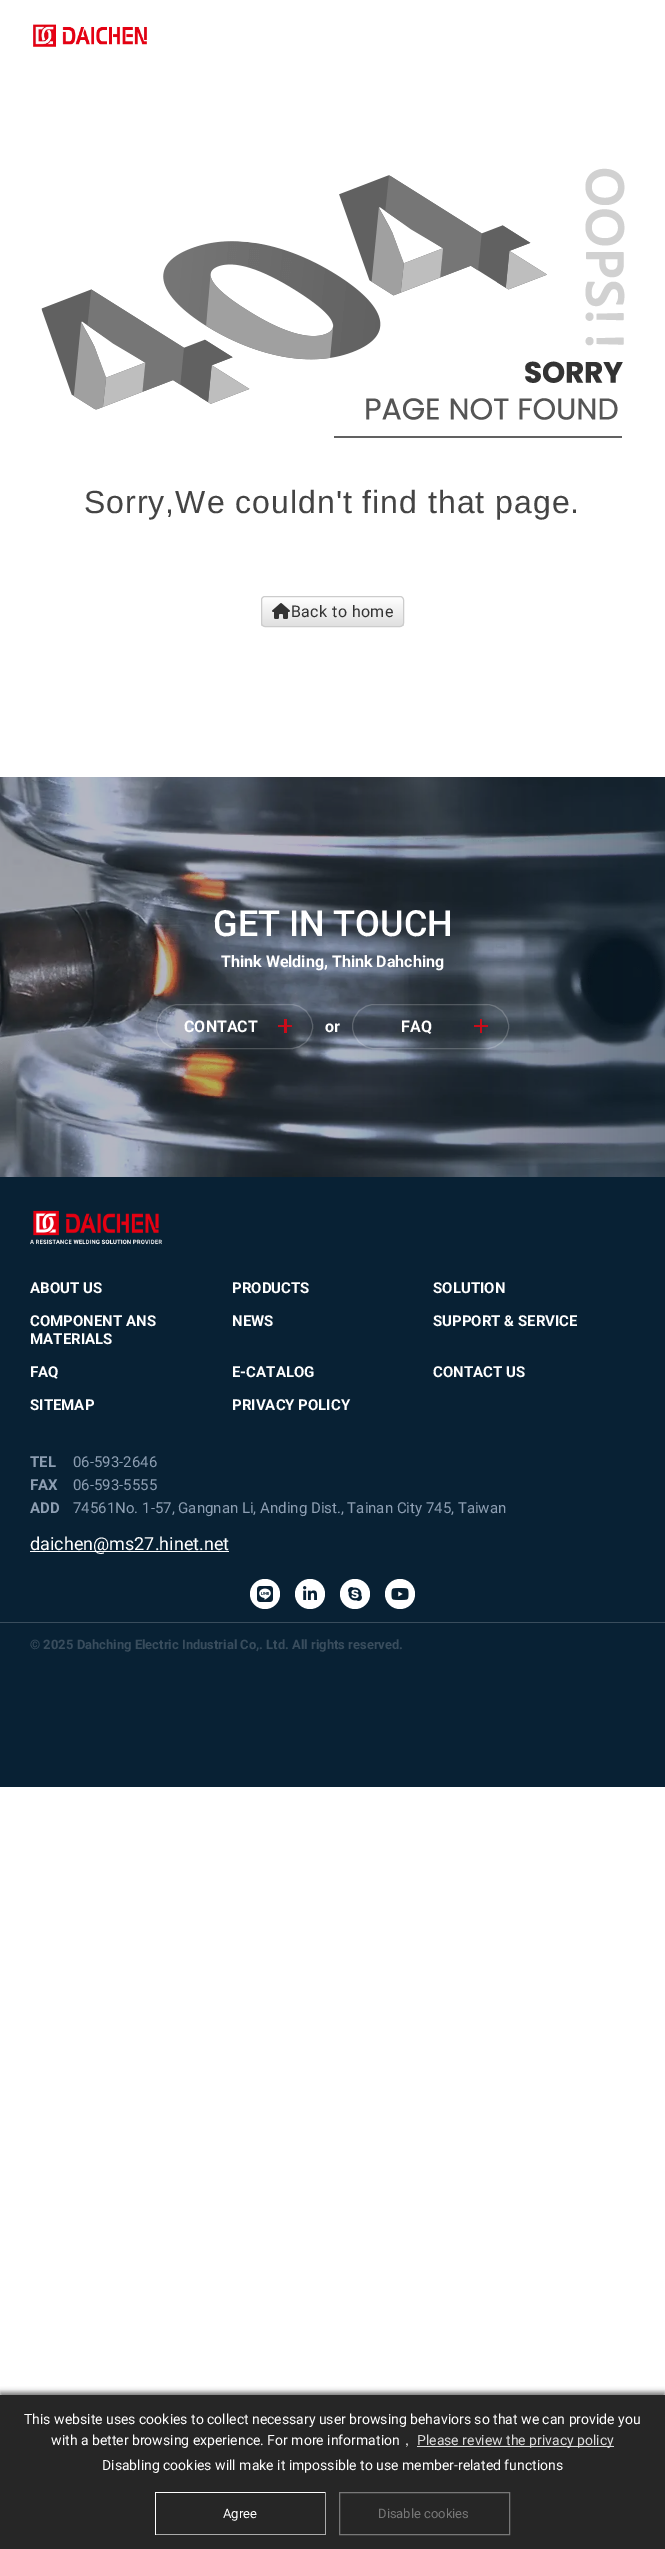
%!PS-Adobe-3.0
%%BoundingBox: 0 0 665 2549
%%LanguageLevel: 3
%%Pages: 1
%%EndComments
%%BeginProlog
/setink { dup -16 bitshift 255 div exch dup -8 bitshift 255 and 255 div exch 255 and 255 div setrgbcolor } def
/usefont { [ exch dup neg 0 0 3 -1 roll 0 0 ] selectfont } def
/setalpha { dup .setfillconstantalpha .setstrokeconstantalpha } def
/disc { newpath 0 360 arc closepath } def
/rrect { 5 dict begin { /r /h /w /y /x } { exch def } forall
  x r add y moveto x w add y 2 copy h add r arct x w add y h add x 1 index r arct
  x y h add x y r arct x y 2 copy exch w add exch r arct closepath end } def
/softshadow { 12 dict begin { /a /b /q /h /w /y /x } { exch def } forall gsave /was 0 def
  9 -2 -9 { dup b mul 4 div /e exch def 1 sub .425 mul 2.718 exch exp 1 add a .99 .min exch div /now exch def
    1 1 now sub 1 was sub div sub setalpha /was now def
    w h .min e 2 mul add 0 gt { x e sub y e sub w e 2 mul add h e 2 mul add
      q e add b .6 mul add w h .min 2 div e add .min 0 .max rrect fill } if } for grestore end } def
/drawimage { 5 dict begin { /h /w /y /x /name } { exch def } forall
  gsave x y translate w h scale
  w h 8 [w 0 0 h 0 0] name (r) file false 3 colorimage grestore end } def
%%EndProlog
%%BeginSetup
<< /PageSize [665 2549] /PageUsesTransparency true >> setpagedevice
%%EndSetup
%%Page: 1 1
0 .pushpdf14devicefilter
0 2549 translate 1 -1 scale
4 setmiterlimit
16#FFFFFF setink
0 0 665 2549 rectfill
(img1.raw) 33 24 114 23 drawimage
(img2.raw) 41 168 584 270 drawimage
/LiberationSans-Regular 32 usefont
16#444444 setink
84 513 moveto 1 0 (Sorry,We couldn't find that page.) ashow
gsave
261 596 143 31 4 rrect clip newpath
gsave 261 597 moveto 404 597 lineto 404 626 lineto 261 626 lineto closepath clip newpath
<< /ShadingType 2 /ColorSpace /DeviceRGB /Coords [333 597 333 626] /Extend [true true] /Function << /FunctionType 2 /Domain [0 1] /C0 [1 1 1] /C1 [0.878 0.878 0.878] /N 1 >> >> shfill grestore
grestore
16#CCCCCC setink
261.5 596.5 142 30 3.5 rrect stroke
(img3.raw) 272 603 18 16 drawimage
/Roboto-Regular 16 usefont
16#333333 setink
291 617 moveto 0.4 0 (Back to home) ashow
(img4.raw) 0 777 665 400 drawimage
/Roboto-Medium 36 usefont
16#FFFFFF setink
213 936 moveto (GET IN TOUCH) show
/Roboto-Bold 16 usefont
221 967 moveto (Think Welding, Think Dahching) show
0.2 setalpha
156.5 1004.5 156 44 22 rrect stroke
1 setalpha
184 1032 moveto (CONTACT) show
16#C90C1A setink
284 1019 3 14 rectfill
278 1025 14 2 rectfill
16#FFFFFF setink
325 1032 moveto (or) show
0.2 setalpha
352.5 1004.5 156 44 22 rrect stroke
1 setalpha
401 1032 moveto (FAQ) show
[
    [480 1019 2 14 16#C90C1A]
    [474 1025 14 2 16#C90C1A]
    [0 1177 665 610 16#082134]
] { aload pop setink rectfill } forall
(img5.raw) 30 1210 132 35 drawimage
/Roboto-Bold 15 usefont
16#FFFFFF setink
[
    [(ABOUT US) 30 1293]
    [(PRODUCTS) 232 1293]
    [(SOLUTION) 433 1293]
    [(COMPONENT ANS) 30 1326]
    [(MATERIALS) 30 1344]
    [(NEWS) 232 1326]
    [(SUPPORT & SERVICE) 433 1326]
    [(FAQ) 30 1377]
    [(E-CATALOG) 232 1377]
    [(CONTACT US) 433 1377]
    [(SITEMAP) 30 1410]
    [(PRIVACY POLICY) 232 1410]
] { aload pop moveto show } forall
16#394D5D setink
0 1622 665 1 rectfill
16#8D9EB2 setink
30 1467 moveto (TEL) show
/Roboto-Regular 15 usefont
73 1467 moveto (06-593-2646) show
/Roboto-Bold 15 usefont
30 1490 moveto (FAX) show
/Roboto-Regular 15 usefont
73 1490 moveto (06-593-5555) show
/Roboto-Bold 15 usefont
30 1513 moveto (ADD) show
/Roboto-Regular 15 usefont
73 1513 moveto (74561No. 1-57, Gangnan Li, Anding Dist., Tainan City 745, Taiwan) show
16#FFFFFF setink
30 1551 199 1 rectfill
/Roboto-Regular 18 usefont
30 1550 moveto (daichen@ms27.hinet.net) show
265 1594 15 disc fill
(img6.raw) 257 1586 16 16 drawimage
310 1594 15 disc fill
(img7.raw) 303 1586 14 14 drawimage
355 1594 15 disc fill
(img8.raw) 348 1587 14 14 drawimage
400 1594 15 disc fill
(img9.raw) 391 1588 18 12 drawimage
/Roboto-Bold 13 usefont
16#394D5D setink
30 1649 moveto (© 2025 Dahching Electric Industrial Co,. Ltd. All rights reserved.) show
16#000000 setink
0 2398 665 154 0 2.5 0.5 softshadow
0 2392 665 154 0 2.5 0.5 softshadow
16#262626 setink
0 2395 665 154 rectfill
/Roboto-Regular 14 usefont
16#FFFFFF setink
24 2424 moveto (This website uses cookies to collect necessary user browsing behaviors so that we can provide you) show
51 2445 moveto (with a better browsing experience. For more information) show
/WenQuanYiZenHei-Medium 14 usefont
400 2445 moveto (，) show
16#DDDDDD setink
417 2446 197 1 rectfill
/Roboto-Regular 14 usefont
417 2445 moveto (Please review the privacy policy) show
16#FFFFFF setink
102 2470 moveto (Disabling cookies will make it impossible to use member-related functions) show
[
    [155 2492 171 1 16#FFFFFF]
    [325 2492 1 43 16#AAAAAA]
    [155 2534 171 1 16#AAAAAA]
    [155 2492 1 43 16#FFFFFF]
] { aload pop setink rectfill } forall
/Roboto-Regular 13 usefont
223 2518 moveto (Agree) show
16#777777 setink
339.5 2492.5 170 42 rectstroke
378 2518 moveto (Disable cookies) show
.poppdf14devicefilter showpage
%%EOF
